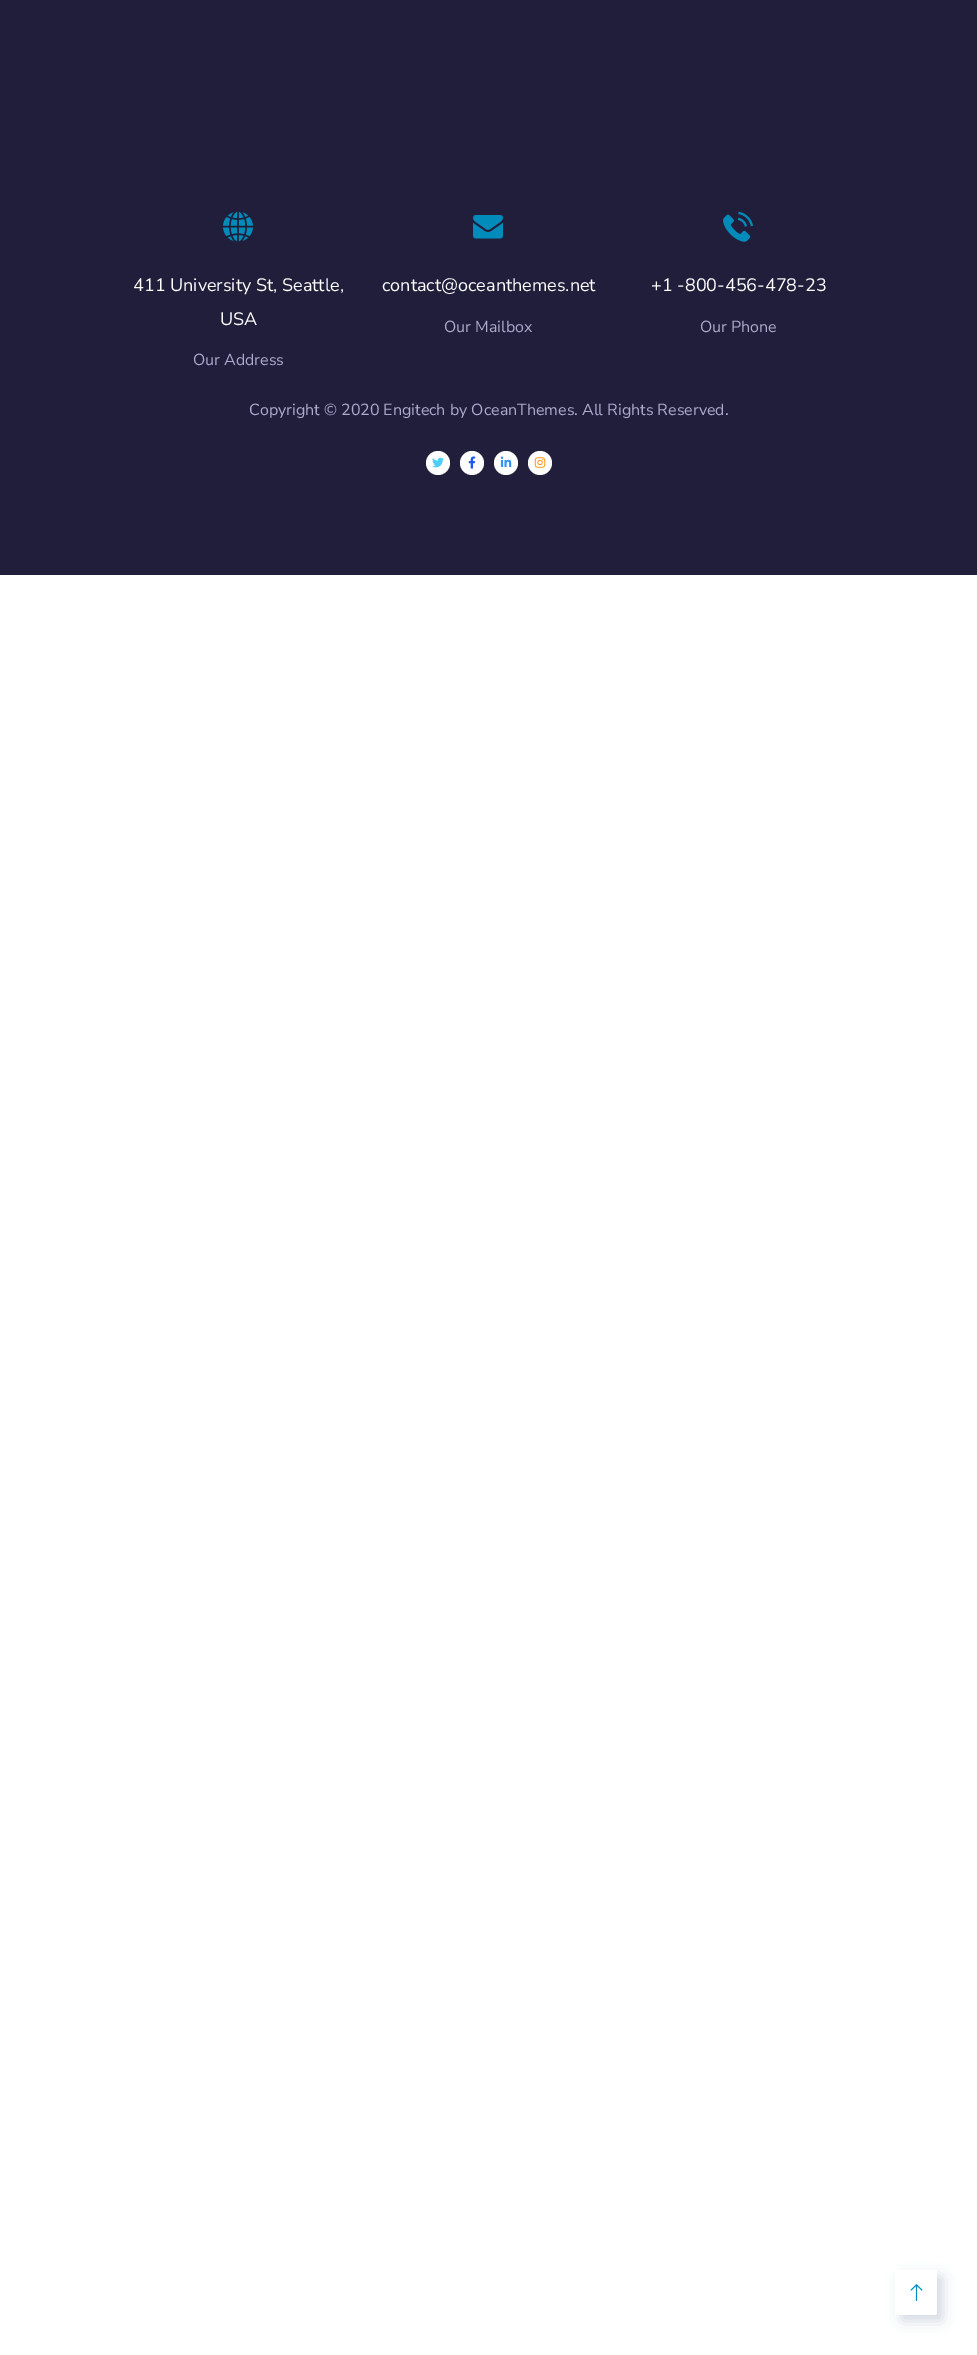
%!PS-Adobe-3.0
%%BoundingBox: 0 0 977 2355
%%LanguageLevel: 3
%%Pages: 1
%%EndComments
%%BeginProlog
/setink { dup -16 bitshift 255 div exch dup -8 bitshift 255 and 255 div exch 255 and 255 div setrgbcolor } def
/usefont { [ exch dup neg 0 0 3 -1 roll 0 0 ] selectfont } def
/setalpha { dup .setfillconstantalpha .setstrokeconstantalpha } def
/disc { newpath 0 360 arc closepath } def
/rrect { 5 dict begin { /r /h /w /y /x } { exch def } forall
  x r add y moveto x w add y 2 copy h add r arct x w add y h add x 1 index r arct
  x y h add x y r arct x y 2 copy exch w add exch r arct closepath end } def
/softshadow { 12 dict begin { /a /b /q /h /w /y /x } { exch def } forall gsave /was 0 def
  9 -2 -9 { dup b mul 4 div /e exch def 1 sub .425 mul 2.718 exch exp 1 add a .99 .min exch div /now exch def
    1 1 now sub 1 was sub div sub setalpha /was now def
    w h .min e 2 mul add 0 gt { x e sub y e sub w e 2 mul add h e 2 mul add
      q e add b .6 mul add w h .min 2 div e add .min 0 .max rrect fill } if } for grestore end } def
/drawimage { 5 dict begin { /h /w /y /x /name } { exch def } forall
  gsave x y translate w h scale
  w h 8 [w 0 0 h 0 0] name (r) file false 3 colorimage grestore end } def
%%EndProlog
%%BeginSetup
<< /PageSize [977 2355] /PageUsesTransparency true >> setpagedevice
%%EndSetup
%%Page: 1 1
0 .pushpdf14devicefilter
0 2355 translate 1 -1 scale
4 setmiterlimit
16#FFFFFF setink
0 0 977 2355 rectfill
16#211E3B setink
0 0 977 575 rectfill
(img1.raw) 223 211 30 31 drawimage
/NunitoSans-Regular 18 usefont
16#FFFFFF setink
133 291 moveto (411 University St, Seattle,) show
220 325 moveto (USA) show
/NunitoSans-Regular 16 usefont
16#AEAACB setink
193 365 moveto (Our Address) show
(img2.raw) 473 215 30 24 drawimage
/NunitoSans-Regular 18 usefont
16#FFFFFF setink
382 291 moveto (contact@oceanthemes.net) show
/NunitoSans-Regular 16 usefont
16#AEAACB setink
444 332 moveto (Our Mailbox) show
(img3.raw) 723 211 30 31 drawimage
/NunitoSans-Regular 18 usefont
16#FFFFFF setink
651 291 moveto (+1 -800-456-478-23) show
/NunitoSans-Regular 16 usefont
16#AEAACB setink
700 332 moveto (Our Phone) show
249 415 moveto (Copyright © 2020 Engitech by OceanThemes. All Rights Reserved.) show
16#FFFFFF setink
438 463 12 disc fill
(img4.raw) 432 457 12 11 drawimage
472 463 12 disc fill
(img5.raw) 468 456 8 13 drawimage
506 463 12 disc fill
(img6.raw) 500 456 12 11 drawimage
540 463 12 disc fill
(img7.raw) 534 457 12 11 drawimage
16#2A4371 setink
901 2276 42 45 2 6.5 0.2 softshadow
16#FFFFFF setink
895 2270 42 45 2 rrect fill
(img8.raw) 910 2284 13 18 drawimage
.poppdf14devicefilter showpage
%%EOF
